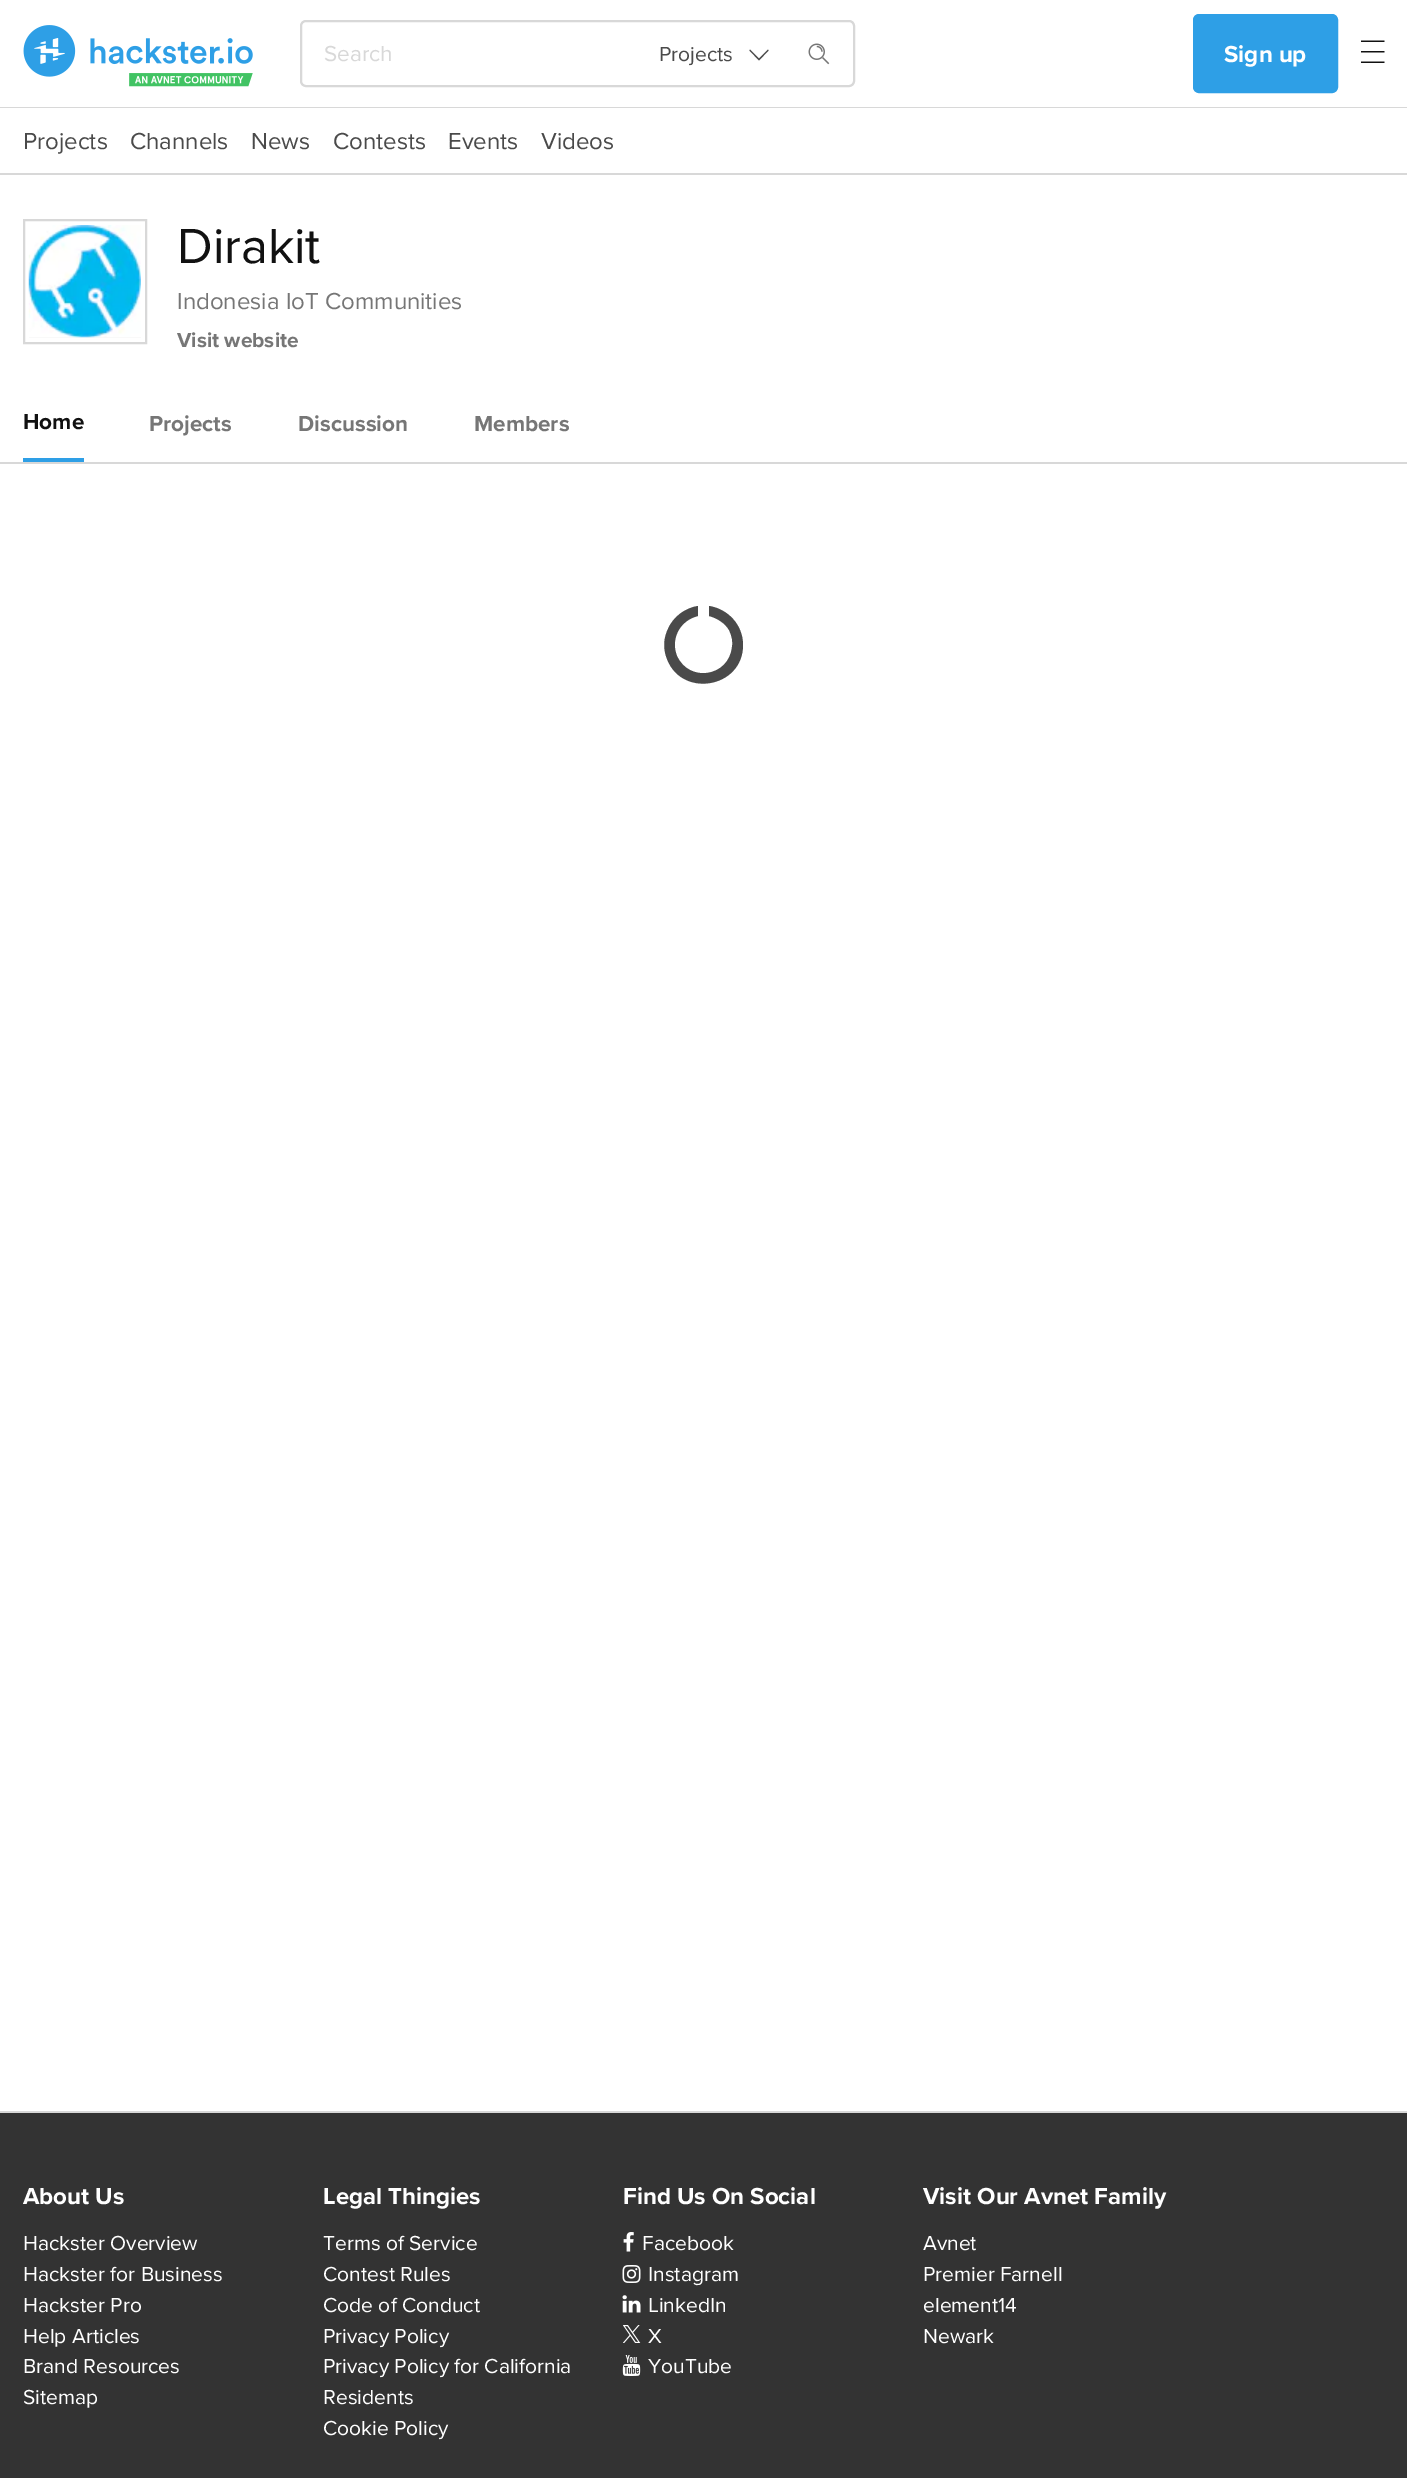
%!PS-Adobe-3.0
%%BoundingBox: 0 0 1407 2478
%%LanguageLevel: 3
%%Pages: 1
%%EndComments
%%BeginProlog
/setink { dup -16 bitshift 255 div exch dup -8 bitshift 255 and 255 div exch 255 and 255 div setrgbcolor } def
/usefont { [ exch dup neg 0 0 3 -1 roll 0 0 ] selectfont } def
/rrect { 5 dict begin { /r /h /w /y /x } { exch def } forall
  x r add y moveto x w add y 2 copy h add r arct x w add y h add x 1 index r arct
  x y h add x y r arct x y 2 copy exch w add exch r arct closepath end } def
/drawimage { 5 dict begin { /h /w /y /x /name } { exch def } forall
  gsave x y translate w h scale
  w h 8 [w 0 0 h 0 0] name (r) file false 3 colorimage grestore end } def
%%EndProlog
%%BeginSetup
<< /PageSize [1407 2478] >> setpagedevice
%%EndSetup
%%Page: 1 1
0 2478 translate 1 -1 scale
4 setmiterlimit
16#FFFFFF setink
0 0 1407 2478 rectfill
16#D8D8D8 setink
0 107 1407 1 rectfill
(img1.raw) 23 25 230 62 drawimage
2 setlinewidth
301 21 553 65 5 rrect stroke
/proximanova-Regular 22.5 usefont
324 61 moveto (Search) show
/proximanova-Regular 21 usefont
16#4A4A4A setink
659 61 moveto (Projects) show
750 49.5 moveto 749.5 50.5 lineto 759 60.5 lineto 768.5 50.5 lineto 768 49.5 lineto 759 58.5 lineto closepath fill
(img2.raw) 808 43 22 22 drawimage
16#2E9FE6 setink
1194 15 143 77 5 rrect gsave fill grestore
stroke
/proximanova-Bold 24 usefont
16#FFFFFF setink
1224 62 moveto (Sign up) show
(img3.raw) 1361 40 24 23 drawimage
16#D8D8D8 setink
0 173 1407 2 rectfill
/proximanova-Regular 24 usefont
16#4A4A4A setink
[
    [(Projects) 23 149]
    [(Channels) 130 149]
    [(News) 251 149]
    [(Contests) 333 149]
    [(Events) 448 149]
    [(Videos) 541 149]
] { aload pop moveto show } forall
16#D8D8D8 setink
0 462 1407 2 rectfill
24 220 122 123 rectstroke
16#F7F7F7 setink
29 337 112 1 rectfill
(img4.raw) 28 225 113 113 drawimage
/proximanova-Regular 51 usefont
16#111111 setink
177 263 moveto (Dirakit) show
/proximanova-Regular 24 usefont
16#767676 setink
177 309 moveto (Indonesia IoT Communities) show
/proximanova-Bold 21 usefont
177 347 moveto (Visit website) show
16#2E9FE6 setink
23 458 61 4 rectfill
/proximanova-Bold 22.5 usefont
16#111111 setink
23 429 moveto (Home) show
16#767676 setink
[
    [(Projects) 149 431]
    [(Discussion) 298 431]
    [(Members) 474 431]
] { aload pop moveto show } forall
16#4A4A4A setink
743 645 moveto 743 689 679 699 666 656 curveto 663 647 664 637 668 629 curveto 673 617 685 608 698 606 curveto 698 616 lineto 680 620 670 639 677 656 curveto 689 683 729 677 732 647 curveto 733 642 732 636 729 630 curveto 725 623 717 618 709 616 curveto 709 606 lineto 728 609 743 625 743 645 curveto closepath fill
16#333333 setink
0 2113 1407 365 rectfill
16#D8D8D8 setink
0 2111 1407 2 rectfill
/proximanova-Bold 24 usefont
16#FFFFFF setink
23 2204 moveto (About Us) show
/proximanova-Regular 21 usefont
[
    [(Hackster Overview) 23 2250]
    [(Hackster for Business) 23 2281]
    [(Hackster Pro) 23 2312]
    [(Help Articles) 23 2343]
    [(Brand Resources) 23 2373]
    [(Sitemap) 23 2404]
] { aload pop moveto show } forall
/proximanova-Bold 24 usefont
323 2204 moveto (Legal Thingies) show
/proximanova-Regular 21 usefont
[
    [(Terms of Service) 323 2250]
    [(Contest Rules) 323 2281]
    [(Code of Conduct) 323 2312]
    [(Privacy Policy) 323 2343]
    [(Privacy Policy for California) 323 2373]
    [(Residents) 323 2404]
    [(Cookie Policy) 323 2435]
] { aload pop moveto show } forall
/proximanova-Bold 24 usefont
623 2204 moveto (Find Us On Social) show
(img5.raw) 623 2232 11 20 drawimage
/proximanova-Regular 21 usefont
642 2250 moveto (Facebook) show
(img6.raw) 622 2265 19 18 drawimage
648 2281 moveto (Instagram) show
(img7.raw) 622 2295 19 18 drawimage
648 2312 moveto (LinkedIn) show
(img8.raw) 623 2325 18 18 drawimage
648 2343 moveto (X) show
(img9.raw) 622 2355 19 21 drawimage
648 2373 moveto (YouTube) show
/proximanova-Bold 24 usefont
923 2204 moveto (Visit Our Avnet Family) show
/proximanova-Regular 21 usefont
[
    [(Avnet) 923 2250]
    [(Premier Farnell) 923 2281]
    [(element14) 923 2312]
    [(Newark) 923 2343]
] { aload pop moveto show } forall
showpage
%%EOF
